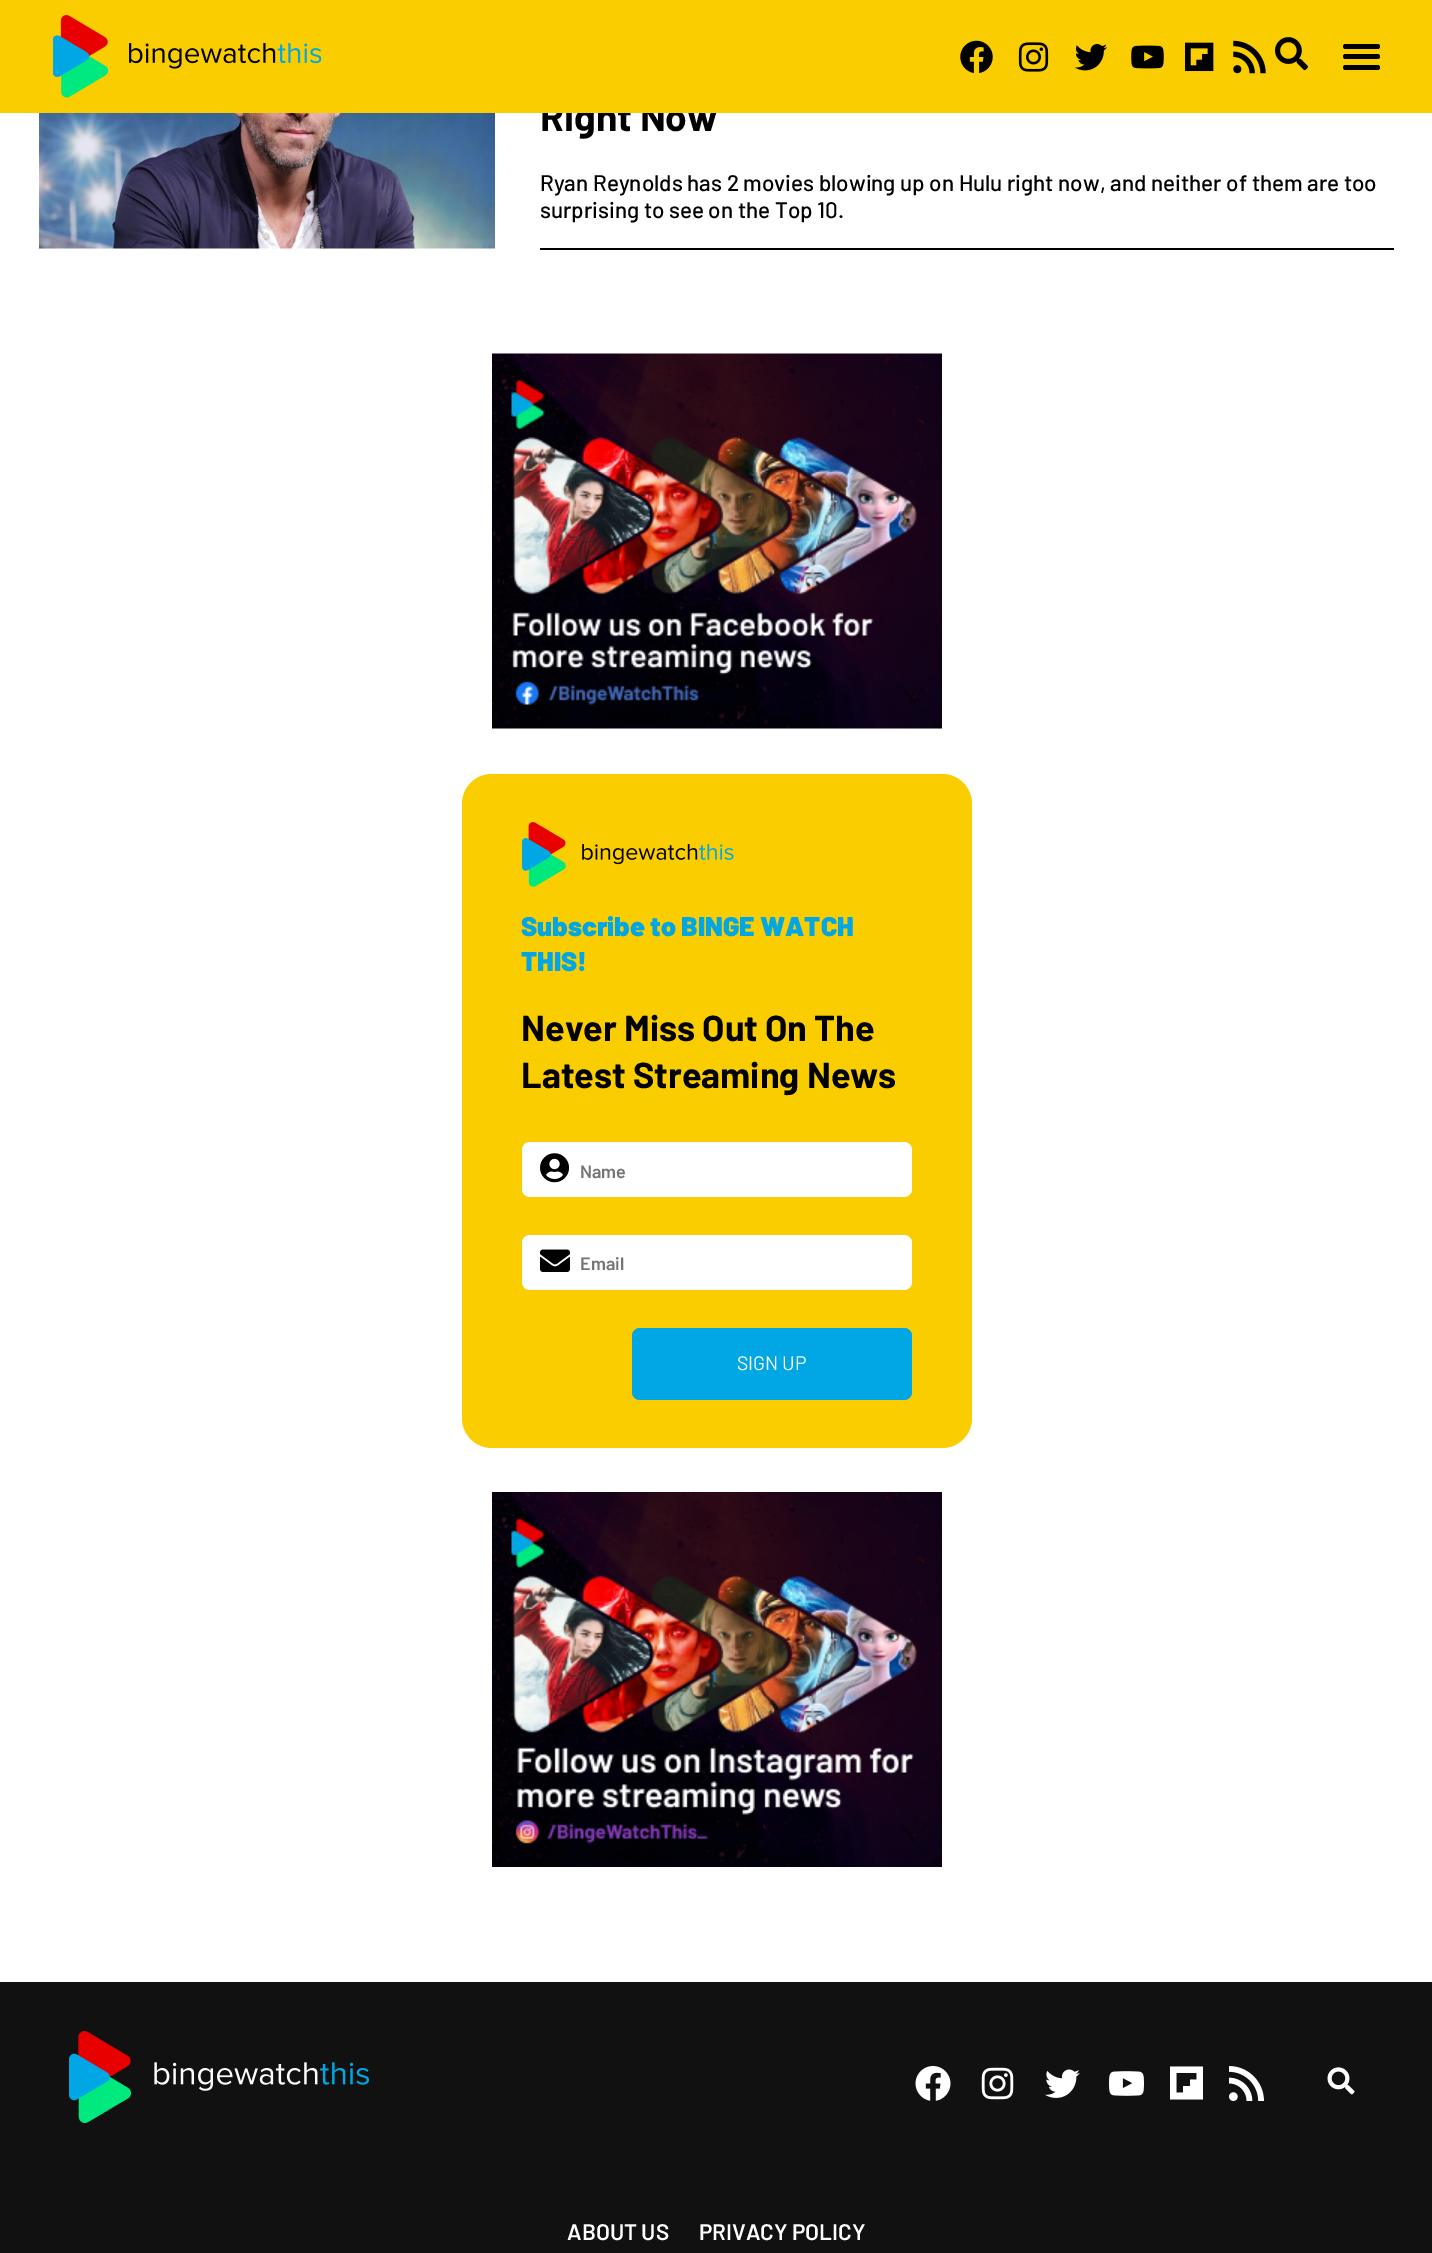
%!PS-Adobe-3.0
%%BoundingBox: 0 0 1432 2253
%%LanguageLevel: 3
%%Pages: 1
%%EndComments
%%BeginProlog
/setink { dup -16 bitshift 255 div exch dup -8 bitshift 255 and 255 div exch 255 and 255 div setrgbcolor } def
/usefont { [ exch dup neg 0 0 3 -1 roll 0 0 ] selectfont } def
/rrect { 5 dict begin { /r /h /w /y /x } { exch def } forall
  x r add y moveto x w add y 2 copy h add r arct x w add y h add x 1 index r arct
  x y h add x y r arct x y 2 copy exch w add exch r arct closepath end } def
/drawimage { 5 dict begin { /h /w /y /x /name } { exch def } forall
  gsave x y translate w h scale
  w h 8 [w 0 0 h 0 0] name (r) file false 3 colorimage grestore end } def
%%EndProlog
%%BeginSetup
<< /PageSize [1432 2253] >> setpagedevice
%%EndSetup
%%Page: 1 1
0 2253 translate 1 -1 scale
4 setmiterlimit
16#FFFFFF setink
0 0 1432 2253 rectfill
/Barlow-Bold 39 usefont
16#000000 setink
540 131 moveto (Right Now) show
16#FACD00 setink
0 0 1432 113 rectfill
(img1.raw) 53 15 268 83 drawimage
(img2.raw) 960 40 33 33 drawimage
(img3.raw) 1018 42 31 30 drawimage
(img4.raw) 1074 44 33 27 drawimage
(img5.raw) 1131 45 33 24 drawimage
(img6.raw) 1185 42 29 30 drawimage
(img7.raw) 1233 40 33 34 drawimage
(img8.raw) 1275 37 33 34 drawimage
16#000000 setink
1343 54 37 5 2.5 rrect fill
1343 44 37 5 2.5 rrect fill
1343 65 37 5 2.5 rrect fill
(img9.raw) 39 113 456 136 drawimage
540 248 854 2 rectfill
/Barlow-Medium 22.5 usefont
540 191 moveto (Ryan Reynolds has 2 movies blowing up on Hulu right now, and neither of them are too) show
540 218 moveto (surprising to see on the Top 10.) show
(img10.raw) 492 353 450 376 drawimage
16#FACD00 setink
462 774 510 674 30 rrect fill
(img11.raw) 522 822 212 65 drawimage
/Barlow-Black 27 usefont
16#00A7E4 setink
521 936 moveto (Subscribe to BINGE WATCH) show
521 971 moveto (THIS!) show
/Barlow-Bold 36 usefont
16#000000 setink
521 1041 moveto (Never Miss Out On The) show
521 1088 moveto (Latest Streaming News) show
16#FFFFFF setink
522 1142 390 55 8 rrect fill
(img12.raw) 540 1153 30 30 drawimage
/Barlow-SemiBold 18 usefont
16#757575 setink
580 1178 moveto (Name) show
16#FFFFFF setink
522 1235 390 55 8 rrect fill
(img13.raw) 540 1249 30 23 drawimage
16#757575 setink
580 1270 moveto (Email) show
16#00A7E4 setink
632 1328 280 72 8 rrect fill
/Barlow-Regular 19.5 usefont
16#FFFFFF setink
737 1370 moveto (SIGN UP) show
(img14.raw) 492 1492 450 375 drawimage
16#111111 setink
0 1982 1432 271 rectfill
(img15.raw) 69 2031 300 92 drawimage
(img16.raw) 915 2066 36 35 drawimage
(img17.raw) 981 2067 33 33 drawimage
(img18.raw) 1045 2069 35 29 drawimage
(img19.raw) 1109 2071 35 25 drawimage
16#FFFFFF setink
1170 2066.5 moveto 1203 2066.5 lineto 1203 2099.5 lineto 1170 2099.5 lineto closepath 1196.5 2079.5 moveto 1196.5 2073 lineto 1176.5 2073 lineto 1176.5 2092.5 lineto 1183 2092.5 lineto 1183 2086 lineto 1190 2086 lineto 1190 2079.5 lineto closepath fill
(img20.raw) 1229 2066 35 35 drawimage
(img21.raw) 1327 2067 28 28 drawimage
/Barlow-SemiBold 22.5 usefont
567 2240 moveto (ABOUT US) show
699 2240 moveto (PRIVACY POLICY) show
showpage
%%EOF
